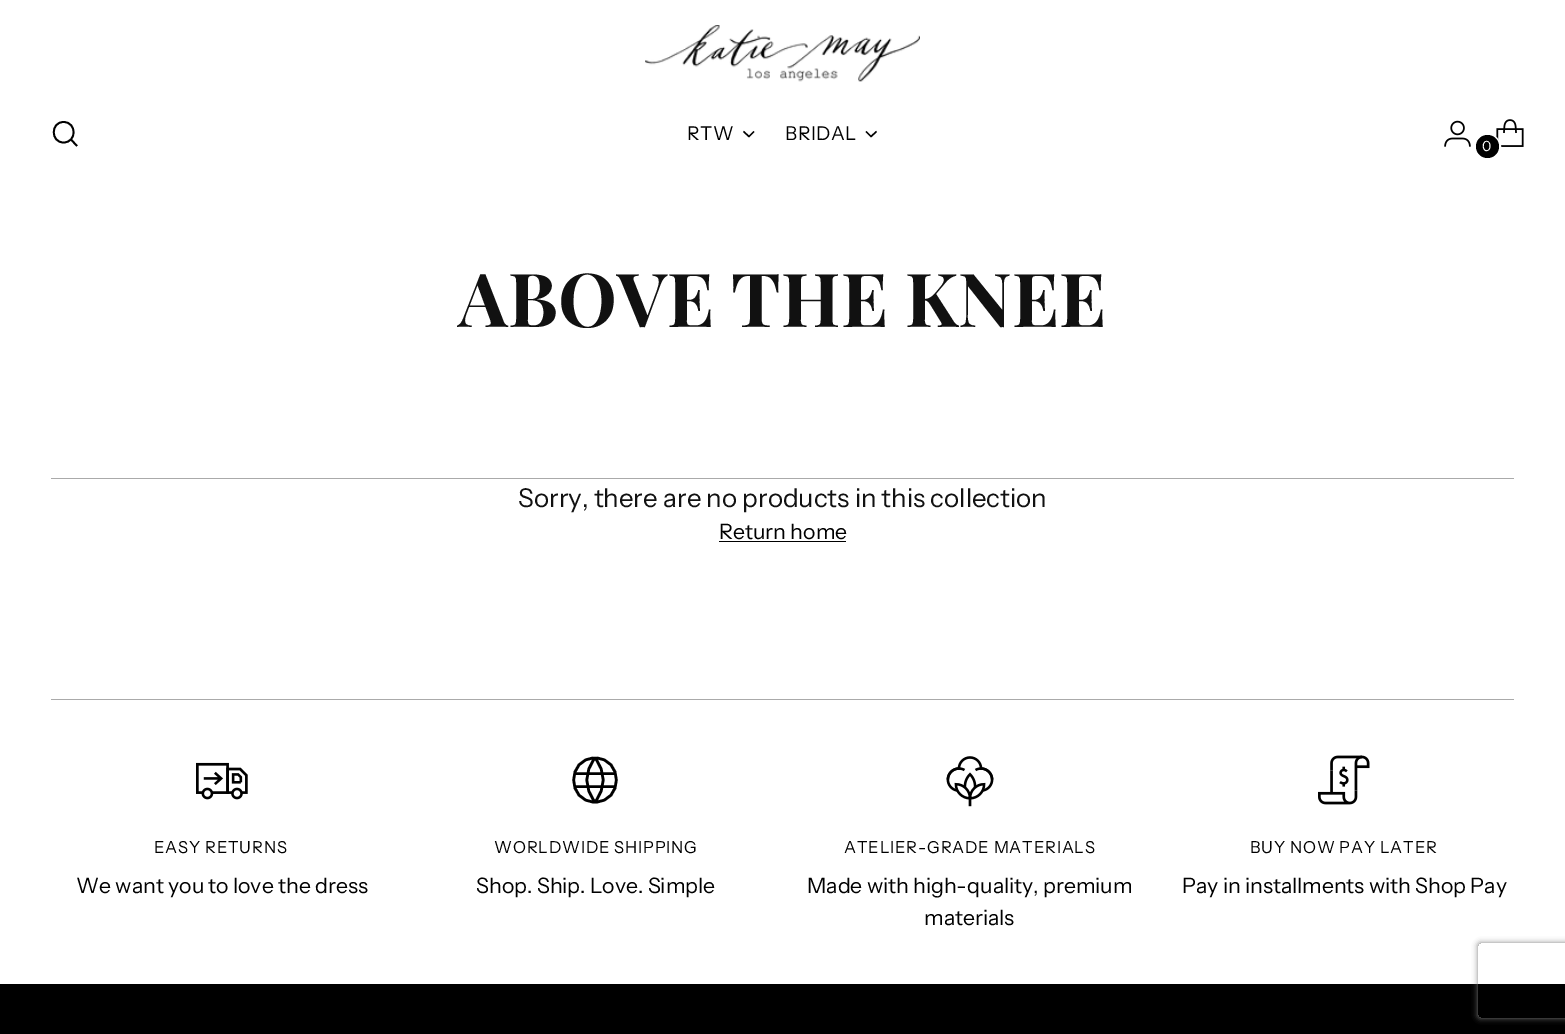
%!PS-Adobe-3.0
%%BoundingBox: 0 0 1565 1034
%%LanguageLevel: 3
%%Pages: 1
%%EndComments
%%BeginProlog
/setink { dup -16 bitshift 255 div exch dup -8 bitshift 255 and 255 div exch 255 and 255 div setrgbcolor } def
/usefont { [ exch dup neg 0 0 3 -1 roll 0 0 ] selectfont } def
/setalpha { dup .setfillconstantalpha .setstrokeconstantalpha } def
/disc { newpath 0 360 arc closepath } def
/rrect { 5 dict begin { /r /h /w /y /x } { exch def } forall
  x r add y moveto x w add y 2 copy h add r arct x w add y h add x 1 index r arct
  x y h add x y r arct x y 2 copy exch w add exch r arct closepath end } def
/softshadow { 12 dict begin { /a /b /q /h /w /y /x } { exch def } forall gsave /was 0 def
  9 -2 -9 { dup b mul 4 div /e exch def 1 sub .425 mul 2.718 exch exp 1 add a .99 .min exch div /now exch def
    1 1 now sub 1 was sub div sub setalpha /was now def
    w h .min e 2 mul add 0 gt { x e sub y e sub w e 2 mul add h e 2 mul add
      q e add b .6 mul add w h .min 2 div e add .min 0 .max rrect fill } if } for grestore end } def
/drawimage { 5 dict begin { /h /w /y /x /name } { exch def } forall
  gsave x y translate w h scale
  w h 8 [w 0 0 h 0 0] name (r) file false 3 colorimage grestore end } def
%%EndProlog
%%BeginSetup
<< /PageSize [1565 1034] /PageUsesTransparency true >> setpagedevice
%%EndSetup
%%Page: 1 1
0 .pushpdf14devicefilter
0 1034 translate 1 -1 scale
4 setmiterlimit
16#FFFFFF setink
0 0 1565 1034 rectfill
(img1.raw) 645 25 275 57 drawimage
16#000000 setink
1.8 setlinewidth
1 setlinecap
63.5 142.5 moveto 77 142.5 77 122 63.5 122 curveto 50.5 122 50.5 142.5 63.5 142.5 curveto closepath stroke
0 setlinecap
71 139.5 moveto 77 146 lineto stroke
/InstrumentSans-Regular 19 usefont
687 140 moveto 0.5 0 (RTW) ashow
1.4 setlinewidth
743.5 131.5 moveto 749 136.5 lineto 754 131.5 lineto stroke
785 140 moveto 0.5 0 (BRIDAL) ashow
866 131.5 moveto 871 136.5 lineto 876.5 131.5 lineto stroke
(img2.raw) 1444 120 27 27 drawimage
(img3.raw) 1496 119 28 28 drawimage
16#FFFFFF setink
2 setlinewidth
1488 147 12 disc stroke
16#000000 setink
1487.5 146.5 11.5 disc fill
/InstrumentSans-Regular 14 usefont
16#FFFFFF setink
1482 151 moveto (0) show
/PlayfairDisplay-Bold 74.5 usefont
16#111111 setink
458 327 moveto (ABOVE THE KNEE) show
16#AAAAAA setink
51 478 1463 1 rectfill
/InstrumentSans-Regular 25.9 usefont
16#111111 setink
518 507 moveto (Sorry, there are no products in this collection) show
/InstrumentSans-Regular 21.25 usefont
16#000000 setink
719 539 moveto (Return home) show
719 541 127 1 rectfill
16#AAAAAA setink
51 699 1463 1 rectfill
(img4.raw) 196 762 52 38 drawimage
/InstrumentSans-Regular 16.5 usefont
16#000000 setink
154 853 moveto 0.8 0 (EASY RETURNS) ashow
/InstrumentSans-Regular 21.25 usefont
76 893 moveto (We want you to love the dress) show
2.6 setlinewidth
595 802 moveto 623.5 802 623.5 758 595 758 curveto 566.5 758 566.5 802 595 802 curveto closepath 575 773.5 moveto 615 773.5 lineto 575 786.5 moveto 615 786.5 lineto 595 758 moveto 606 772.5 606 787.5 595 802 curveto 595 758 moveto 584 772.5 584 787.5 595 802 curveto stroke
/InstrumentSans-Regular 16.5 usefont
494 853 moveto 0.8 0 (WORLDWIDE SHIPPING) ashow
/InstrumentSans-Regular 21.25 usefont
476 893 moveto (Shop. Ship. Love. Simple) show
(img5.raw) 946 756 48 51 drawimage
/InstrumentSans-Regular 16.5 usefont
844 853 moveto 0.8 0 (ATELIER-GRADE MATERIALS) ashow
/InstrumentSans-Regular 21.25 usefont
807 893 moveto (Made with high-quality, premium) show
924 925 moveto (materials) show
(img6.raw) 1318 755 52 50 drawimage
/InstrumentSans-Regular 16.5 usefont
1250 853 moveto 0.8 0 (BUY NOW PAY LATER) ashow
/InstrumentSans-Regular 21.25 usefont
1182 893 moveto (Pay in installments with Shop Pay) show
0 984 1565 50 rectfill
gsave
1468 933 moveto 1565 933 lineto 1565 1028 lineto 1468 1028 lineto closepath 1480.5 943 moveto 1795.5 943 lineto 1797 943 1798 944 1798 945.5 curveto 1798 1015.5 lineto 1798 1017 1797 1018 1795.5 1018 curveto 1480.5 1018 lineto 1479 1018 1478 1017 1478 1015.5 curveto 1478 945.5 lineto 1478 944 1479 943 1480.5 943 curveto closepath eoclip newpath
16#808080 setink
1478 943 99 75 2.5 3 1 softshadow
grestore
.poppdf14devicefilter showpage
%%EOF
